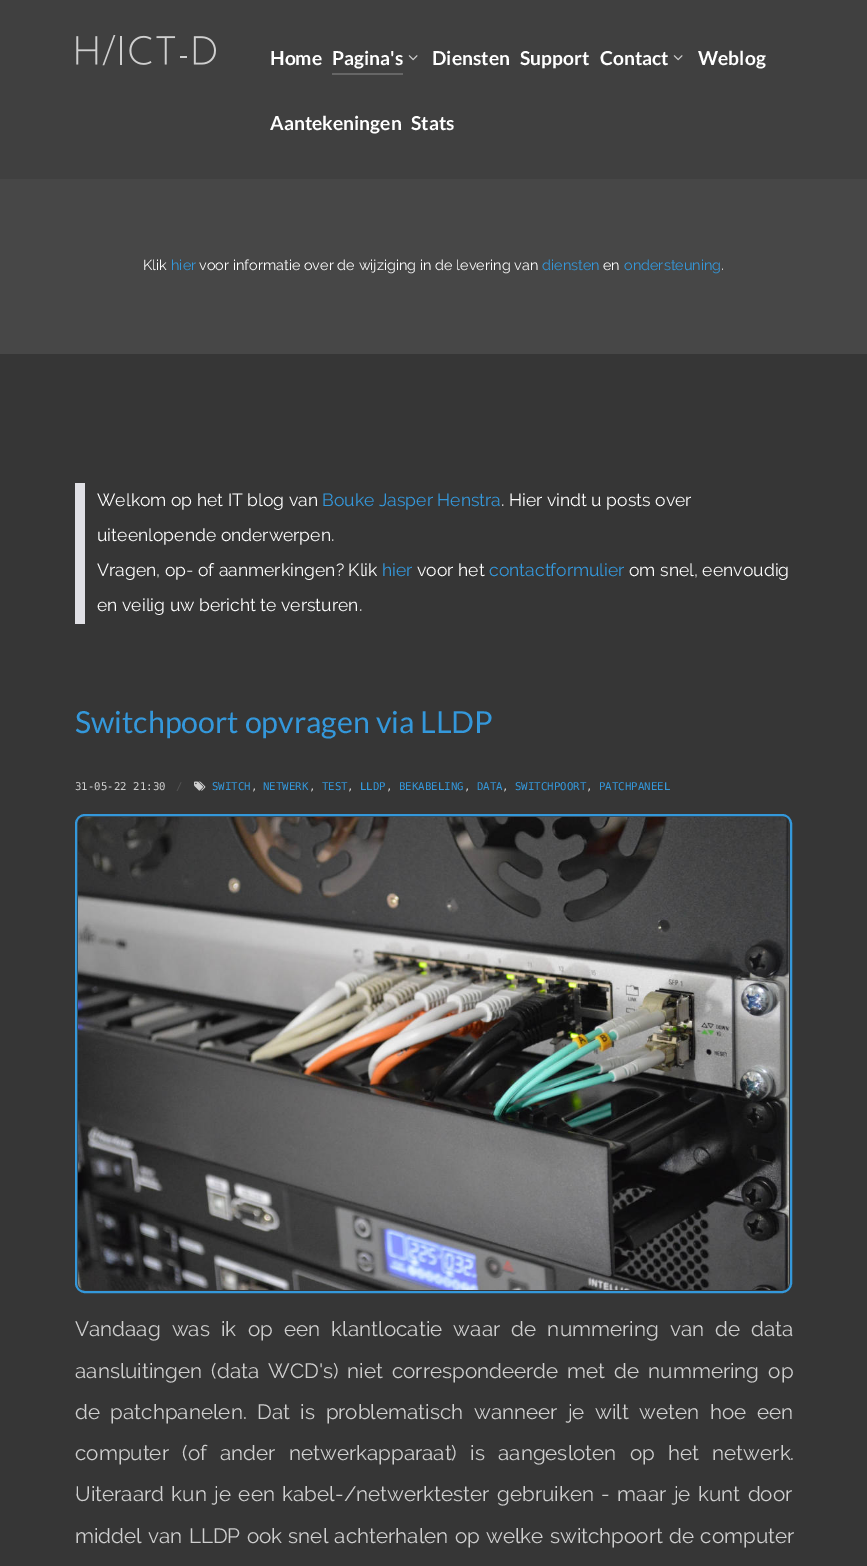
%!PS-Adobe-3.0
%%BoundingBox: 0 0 867 1566
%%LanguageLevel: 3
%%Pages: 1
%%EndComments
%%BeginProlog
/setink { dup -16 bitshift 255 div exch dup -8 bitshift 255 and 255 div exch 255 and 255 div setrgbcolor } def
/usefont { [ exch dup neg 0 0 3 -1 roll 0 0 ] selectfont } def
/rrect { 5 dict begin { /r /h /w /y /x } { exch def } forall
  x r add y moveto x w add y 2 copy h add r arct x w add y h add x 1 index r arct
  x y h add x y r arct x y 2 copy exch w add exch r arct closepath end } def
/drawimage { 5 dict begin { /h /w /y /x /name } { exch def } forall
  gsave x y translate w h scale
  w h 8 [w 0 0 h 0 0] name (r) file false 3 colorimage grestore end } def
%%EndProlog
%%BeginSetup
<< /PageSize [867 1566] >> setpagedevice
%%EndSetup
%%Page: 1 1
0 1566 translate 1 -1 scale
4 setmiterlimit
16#363636 setink
0 0 867 1566 rectfill
16#404040 setink
0 0 867 179 rectfill
(img1.raw) 76 35 140 31 drawimage
/Lato-Bold 19.25 usefont
16#FFFFFF setink
270 65 moveto (Home) show
16#666666 setink
332 73 71 2 rectfill
16#FFFFFF setink
332 65 moveto (Pagina's) show
(img2.raw) 408 55 10 6 drawimage
[
    [(Diensten) 432 65]
    [(Support) 520 65]
    [(Contact) 600 65]
] { aload pop moveto show } forall
(img2.raw) 673 55 10 6 drawimage
[
    [(Weblog) 698 65]
    [(Aantekeningen) 270 130]
    [(Stats) 411 130]
] { aload pop moveto show } forall
16#474747 setink
0 179 867 175 rectfill
/Raleway-Regular 14.45 usefont
16#FFFFFF setink
143 270 moveto (Klik) show
16#3498DB setink
171 270 moveto (hier) show
16#FFFFFF setink
199 270 moveto (voor informatie over de wijziging in de levering van) show
16#3498DB setink
542 270 moveto (diensten) show
16#FFFFFF setink
603 270 moveto (en) show
16#3498DB setink
624 270 moveto (ondersteuning) show
16#FFFFFF setink
721 270 moveto (.) show
16#E0E0E5 setink
75 483 10 141 rectfill
/Raleway-Regular 17.6 usefont
16#FFFFFF setink
97 506 moveto (Welkom op het IT blog van) show
16#3498DB setink
322 506 moveto (Bouke Jasper Henstra) show
16#FFFFFF setink
[
    [(. Hier vindt u posts over) 501 506]
    [(uiteenlopende onderwerpen.) 97 541]
    [(Vragen, op- of aanmerkingen? Klik) 97 576]
] { aload pop moveto show } forall
16#3498DB setink
382 576 moveto (hier) show
16#FFFFFF setink
417 576 moveto (voor het) show
16#3498DB setink
489 576 moveto (contactformulier) show
16#FFFFFF setink
629 576 moveto (om snel, eenvoudig) show
97 611 moveto (en veilig uw bericht te versturen.) show
/Lato-Regular 30.4 usefont
16#3498DB setink
75 733 moveto (Switchpoort opvragen via LLDP) show
/DejaVuSansMono-Regular 10.75 usefont
16#CFCFCF setink
75 790 moveto (31-05-22 21:30) show
16#555555 setink
176 790 moveto (/) show
(img3.raw) 194 781 12 10 drawimage
16#3498DB setink
212 790 moveto (SWITCH) show
16#CFCFCF setink
251 790 moveto (,) show
16#3498DB setink
263 790 moveto (NETWERK) show
16#CFCFCF setink
309 790 moveto (,) show
16#3498DB setink
322 790 moveto (TEST) show
16#CFCFCF setink
347 790 moveto (,) show
16#3498DB setink
360 790 moveto (LLDP) show
16#CFCFCF setink
386 790 moveto (,) show
16#3498DB setink
399 790 moveto (BEKABELING) show
16#CFCFCF setink
464 790 moveto (,) show
16#3498DB setink
477 790 moveto (DATA) show
16#CFCFCF setink
502 790 moveto (,) show
16#3498DB setink
515 790 moveto (SWITCHPOORT) show
16#CFCFCF setink
586 790 moveto (,) show
16#3498DB setink
599 790 moveto (PATCHPANEEL) show
2 setlinewidth
76 815 715 477 9 rrect stroke
(img4.raw) 78 817 711 473 drawimage
/Raleway-Regular 20.65 usefont
16#CFCFCF setink
75 1336 moveto 6 0 32 (Vandaag was ik op een klantlocatie waar de nummering van de data) widthshow
75 1378 moveto 3.75 0 32 (aansluitingen \(data WCD's\) niet correspondeerde met de nummering op) widthshow
75 1419 moveto 5.25 0 32 (de patchpanelen. Dat is problematisch wanneer je wilt weten hoe een) widthshow
75 1460 moveto 8 0 32 (computer \(of ander netwerkapparaat\) is aangesloten op het netwerk.) widthshow
75 1501 moveto 2.25 0 32 (Uiteraard kun je een kabel-/netwerktester gebruiken - maar je kunt door) widthshow
75 1543 moveto 1 0 32 (middel van LLDP ook snel achterhalen op welke switchpoort de computer) widthshow
showpage
%%EOF
